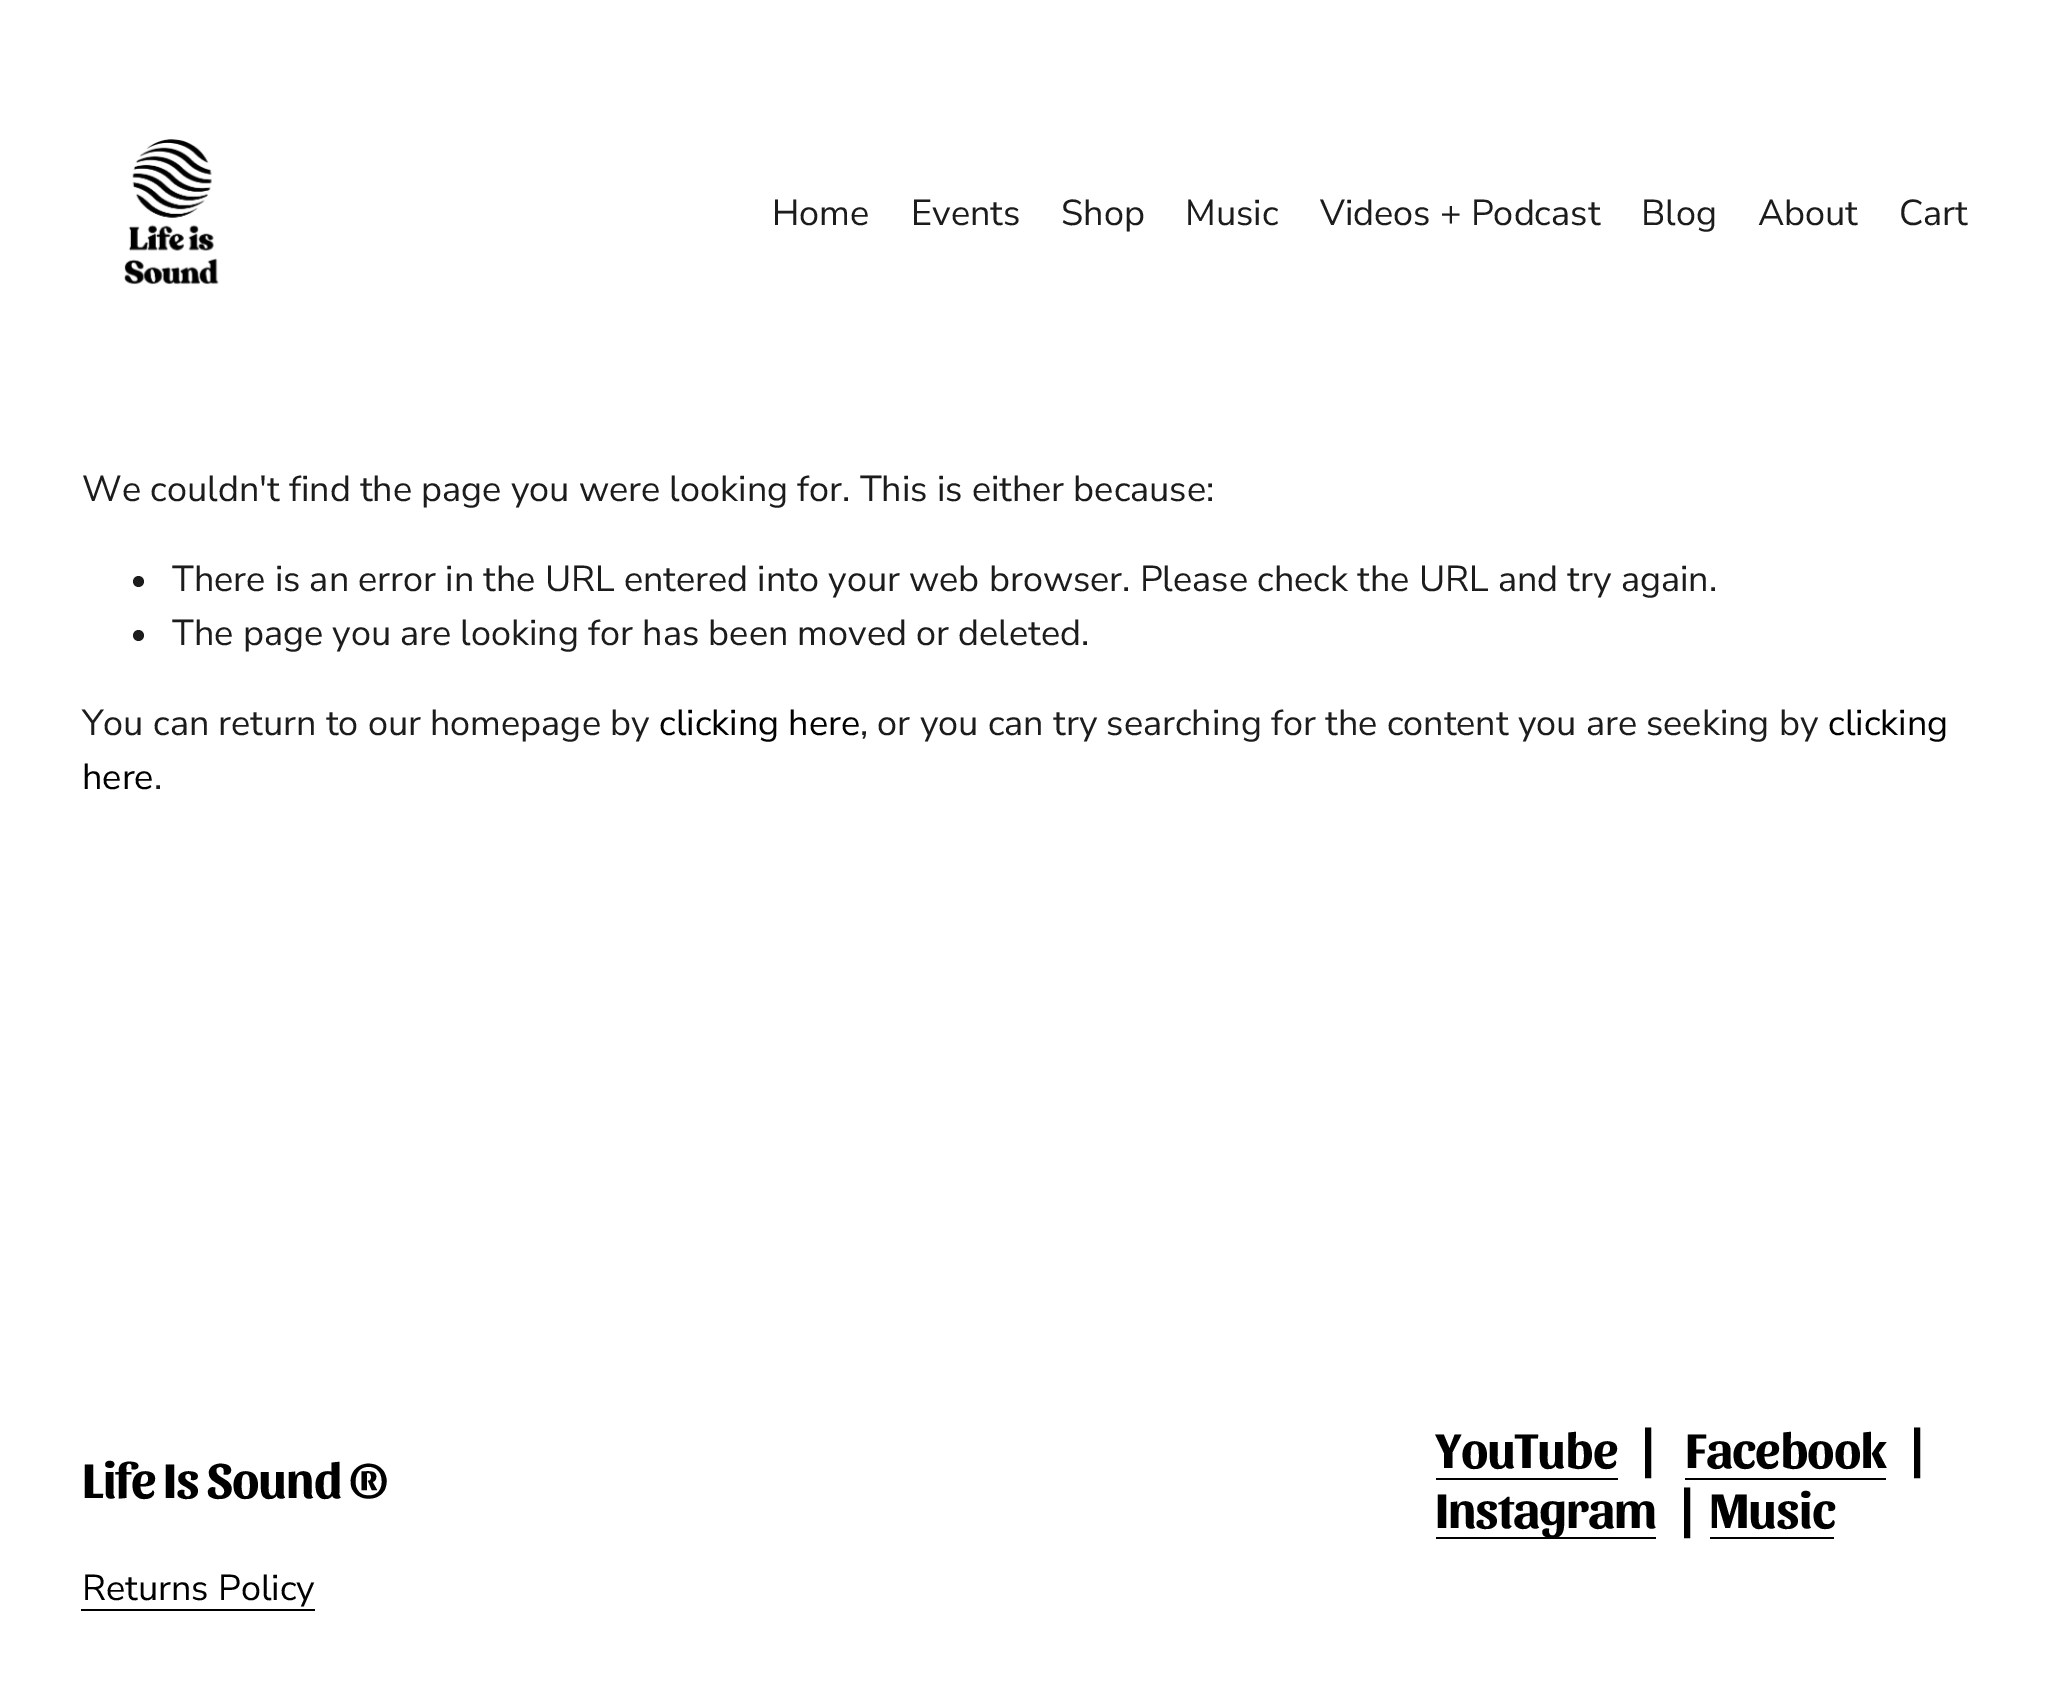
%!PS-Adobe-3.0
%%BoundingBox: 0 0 2049 1684
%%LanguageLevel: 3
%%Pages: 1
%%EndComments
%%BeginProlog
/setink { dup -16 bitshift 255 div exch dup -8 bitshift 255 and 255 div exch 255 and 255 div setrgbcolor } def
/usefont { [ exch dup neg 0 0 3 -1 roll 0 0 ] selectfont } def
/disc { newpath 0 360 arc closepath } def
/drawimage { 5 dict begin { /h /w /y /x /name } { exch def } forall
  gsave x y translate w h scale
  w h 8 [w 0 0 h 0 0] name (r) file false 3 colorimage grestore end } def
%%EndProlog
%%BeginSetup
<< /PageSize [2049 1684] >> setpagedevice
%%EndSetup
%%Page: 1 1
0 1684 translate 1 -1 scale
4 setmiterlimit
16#FFFFFF setink
0 0 2049 1684 rectfill
(img1.raw) 124 139 95 146 drawimage
/NunitoSans-Regular 36 usefont
16#1C1C1C setink
[
    [(Home) 772 225]
    [(Events) 911 225]
    [(Shop) 1061 225]
    [(Music) 1185 225]
    [(Videos + Podcast) 1320 225]
    [(Blog) 1641 225]
    [(About) 1758 225]
    [(Cart) 1899 225]
    [(We couldn't find the page you were looking for. This is either because:) 82 501]
] { aload pop moveto show } forall
138.5 581.5 5.5 disc fill
172 591 moveto (There is an error in the URL entered into your web browser. Please check the URL and try again.) show
138.5 635.5 5.5 disc fill
172 645 moveto (The page you are looking for has been moved or deleted.) show
82 735 moveto (You can return to our homepage by) show
16#000000 setink
659 735 moveto (clicking here) show
16#1C1C1C setink
860 735 moveto (, or you can try searching for the content you are seeking by) show
16#000000 setink
1828 735 moveto (clicking) show
82 789 moveto (here) show
16#1C1C1C setink
154 789 moveto (.) show
/Sansita-Bold 50.75 usefont
16#000000 setink
82 1498 moveto -1 0 (Life Is Sound ®) ashow
1435 1468 moveto -1 0 (YouTube) ashow
1436 1478 182 2 rectfill
1641 1468 moveto -1 0 (|) ashow
1685 1468 moveto -1 0 (Facebook) ashow
1685 1478 201 2 rectfill
1910 1468 moveto -1 0 (|) ashow
1436 1537 220 2 rectfill
1435 1528 moveto -1 0 (Instagram) ashow
1680 1528 moveto -1 0 (|) ashow
1709 1528 moveto -1 0 (Music) ashow
1710 1537 124 2 rectfill
/NunitoSans-Regular 36 usefont
82 1600 moveto (Returns Policy) show
81 1609 234 2 rectfill
showpage
%%EOF
